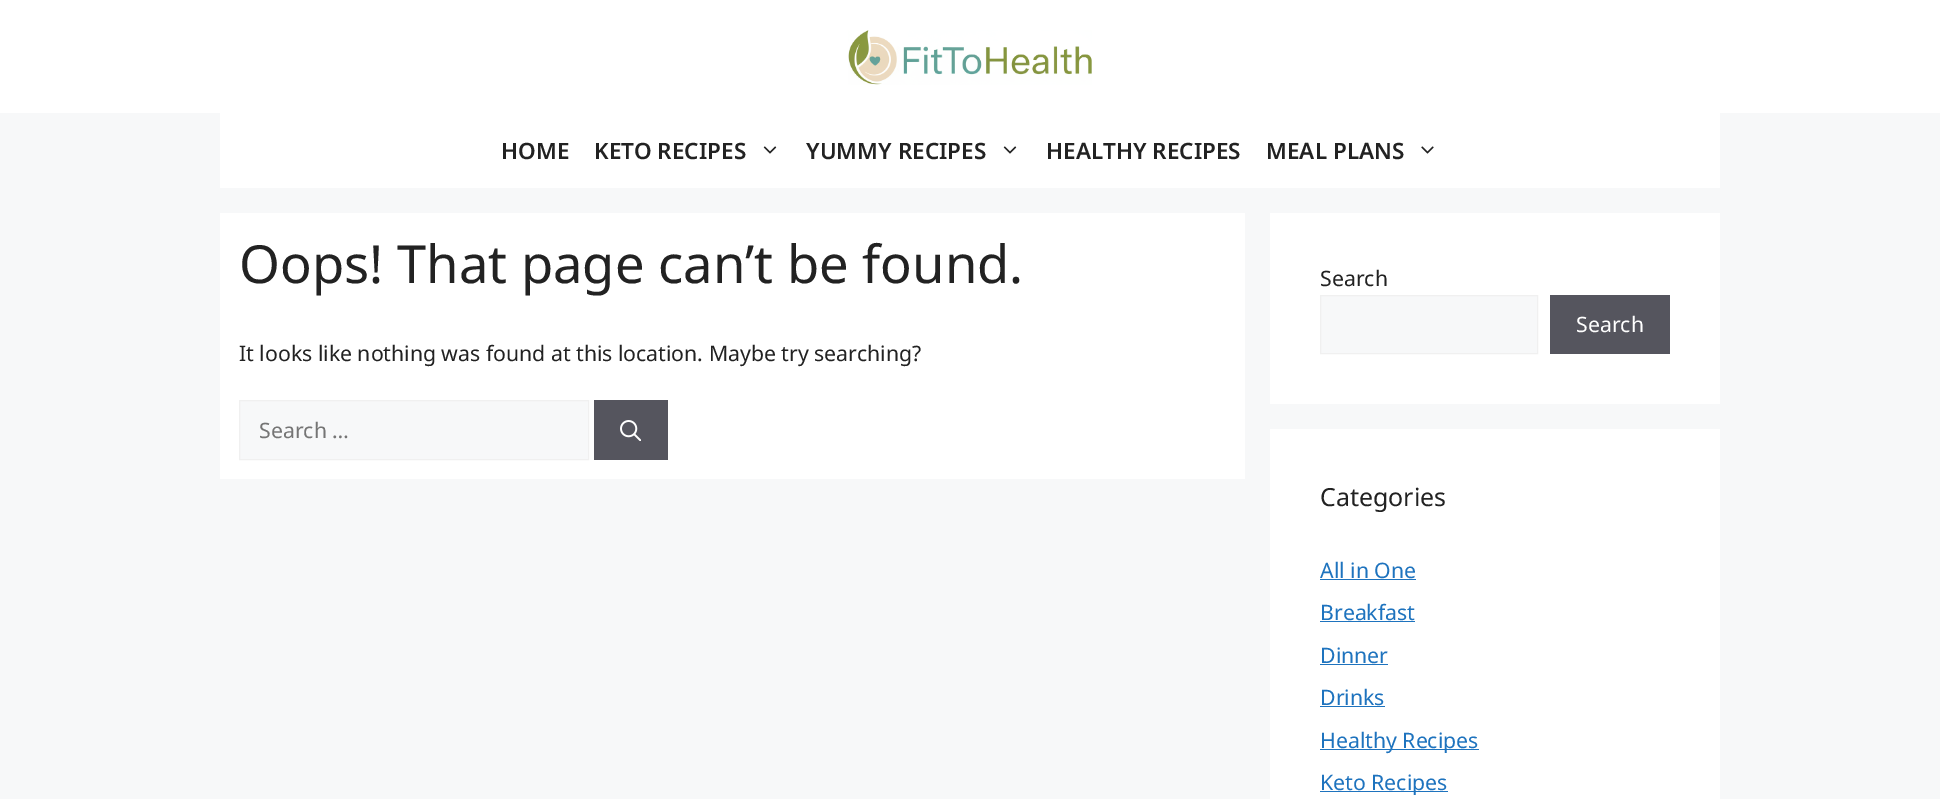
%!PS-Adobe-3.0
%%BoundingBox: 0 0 1940 799
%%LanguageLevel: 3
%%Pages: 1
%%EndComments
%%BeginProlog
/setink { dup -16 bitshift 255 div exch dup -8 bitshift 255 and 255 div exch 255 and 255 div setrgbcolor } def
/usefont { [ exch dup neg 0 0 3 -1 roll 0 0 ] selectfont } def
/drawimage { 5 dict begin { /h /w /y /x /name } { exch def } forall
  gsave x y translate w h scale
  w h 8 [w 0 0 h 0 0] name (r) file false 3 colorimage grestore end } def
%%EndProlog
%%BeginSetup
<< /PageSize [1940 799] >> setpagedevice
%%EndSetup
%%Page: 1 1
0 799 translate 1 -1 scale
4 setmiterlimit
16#F7F8F9 setink
0 0 1940 799 rectfill
16#FFFFFF setink
0 0 1940 113 rectfill
(img1.raw) 848 30 244 55 drawimage
220 113 1500 75 rectfill
/NotoSans-SemiBold 22.5 usefont
16#222222 setink
501 159 moveto (HOME) show
594 159 moveto (KETO RECIPES) show
(img2.raw) 763 146 14 8 drawimage
806 159 moveto (YUMMY RECIPES) show
(img2.raw) 1003 146 14 8 drawimage
1046 159 moveto (HEALTHY RECIPES) show
1266 159 moveto (MEAL PLANS) show
(img3.raw) 1421 146 13 8 drawimage
16#FFFFFF setink
220 213 1025 266 rectfill
/NotoSans-Regular 52.5 usefont
16#222222 setink
239 283 moveto (Oops! That page can’t be found.) show
/NotoSans-Regular 21.25 usefont
239 361 moveto (It looks like nothing was found at this location. Maybe try searching?) show
16#F7F8F9 setink
239.5 400.5 moveto 588.5 400.5 lineto 588.5 459.5 lineto 239.5 459.5 lineto closepath gsave fill grestore
16#F0F0F0 setink
stroke
16#757575 setink
259 438 moveto (Search …) show
16#55555E setink
594 400 74 60 rectfill
(img4.raw) 620 420 21 21 drawimage
16#FFFFFF setink
1270 213 450 191 rectfill
16#222222 setink
1320 286 moveto (Search) show
16#F7F8F9 setink
1320.5 295.5 moveto 1537.5 295.5 lineto 1537.5 353.5 lineto 1320.5 353.5 lineto closepath gsave fill grestore
16#F0F0F0 setink
stroke
16#55555E setink
1550 295 120 59 rectfill
16#FFFFFF setink
1576 332 moveto (Search) show
1270 429 450 370 rectfill
/NotoSans-Regular 25 usefont
16#222222 setink
1320 506 moveto (Categories) show
/NotoSans-Regular 21.25 usefont
16#1E73BE setink
1320 578 moveto (All in One) show
1320 579 96 1 rectfill
1320 620 moveto (Breakfast) show
1320 621 95 1 rectfill
1320 663 moveto (Dinner) show
1320 664 68 1 rectfill
1320 705 moveto (Drinks) show
1320 706 65 1 rectfill
1320 749 159 1 rectfill
1320 748 moveto (Healthy Recipes) show
1320 791 128 1 rectfill
1320 790 moveto (Keto Recipes) show
showpage
%%EOF
